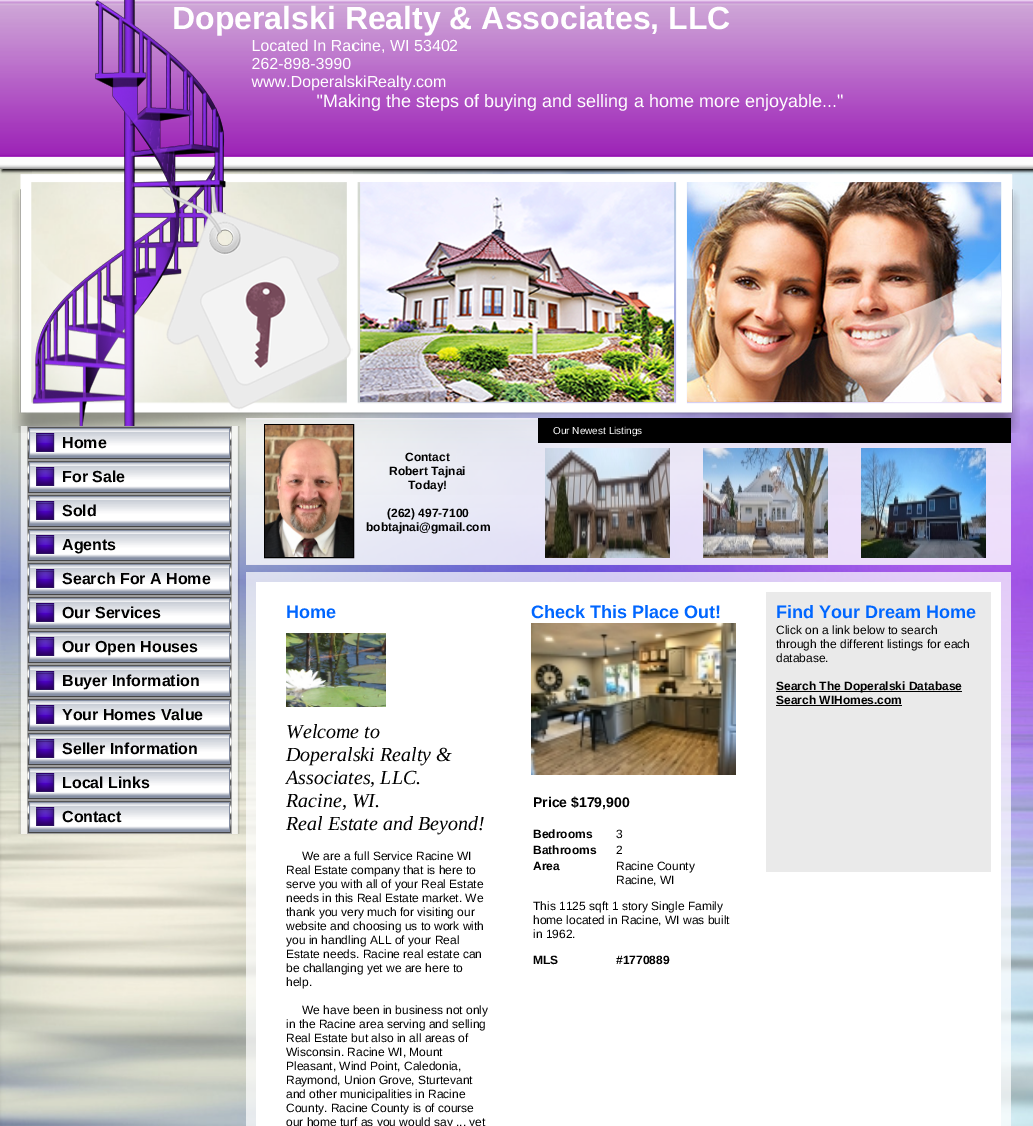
%!PS-Adobe-3.0
%%BoundingBox: 0 0 1033 1126
%%LanguageLevel: 3
%%Pages: 1
%%EndComments
%%BeginProlog
/setink { dup -16 bitshift 255 div exch dup -8 bitshift 255 and 255 div exch 255 and 255 div setrgbcolor } def
/usefont { [ exch dup neg 0 0 3 -1 roll 0 0 ] selectfont } def
/setalpha { dup .setfillconstantalpha .setstrokeconstantalpha } def
/rrect { 5 dict begin { /r /h /w /y /x } { exch def } forall
  x r add y moveto x w add y 2 copy h add r arct x w add y h add x 1 index r arct
  x y h add x y r arct x y 2 copy exch w add exch r arct closepath end } def
/softshadow { 12 dict begin { /a /b /q /h /w /y /x } { exch def } forall gsave /was 0 def
  9 -2 -9 { dup b mul 4 div /e exch def 1 sub .425 mul 2.718 exch exp 1 add a .99 .min exch div /now exch def
    1 1 now sub 1 was sub div sub setalpha /was now def
    w h .min e 2 mul add 0 gt { x e sub y e sub w e 2 mul add h e 2 mul add
      q e add b .6 mul add w h .min 2 div e add .min 0 .max rrect fill } if } for grestore end } def
/drawimage { 5 dict begin { /h /w /y /x /name } { exch def } forall
  gsave x y translate w h scale
  w h 8 [w 0 0 h 0 0] name (r) file false 3 colorimage grestore end } def
%%EndProlog
%%BeginSetup
<< /PageSize [1033 1126] /PageUsesTransparency true >> setpagedevice
%%EndSetup
%%Page: 1 1
0 .pushpdf14devicefilter
0 1126 translate 1 -1 scale
4 setmiterlimit
16#FFFFFF setink
0 0 1033 1126 rectfill
(img15.raw) 0 169 1033 957 drawimage
(img3.raw) 12 174 1008 259 drawimage
16#000000 setink
2 2 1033 169 0 1.5 1 softshadow
(img1.raw) 0 0 1033 169 drawimage
/LiberationSans-Regular 16 usefont
16#FFFFFF setink
[
    [(Located In Racine, WI 53402) 252 51]
    [(262-898-3990) 252 69]
    [(www.DoperalskiRealty.com) 252 87]
] { aload pop moveto show } forall
/LiberationSans-Regular 18 usefont
317 107 moveto ("Making the steps of buying and selling a home more enjoyable...") show
(img8.raw) 246 418 765 147 drawimage
16#000000 setink
264.5 424.5 89 133 rectstroke
(img9.raw) 265 425 88 132 drawimage
(img2.raw) 32 0 321 426 drawimage
/LiberationSans-Bold 32 usefont
16#FFFFFF setink
172 29 moveto (Doperalski Realty & Associates, LLC) show
(img4.raw) 360 182 314 220 drawimage
(img5.raw) 687 182 314 220 drawimage
(img6.raw) 18 426 222 408 drawimage
(img7.raw) 27 426 205 34 drawimage
/LiberationSans-Bold 16 usefont
16#000000 setink
62 448 moveto (Home) show
(img7.raw) 27 460 205 34 drawimage
62 482 moveto (For Sale) show
(img7.raw) 27 494 205 34 drawimage
62 516 moveto (Sold) show
(img7.raw) 27 528 205 34 drawimage
62 550 moveto (Agents) show
(img7.raw) 27 562 205 34 drawimage
62 584 moveto (Search For A Home) show
(img7.raw) 27 596 205 34 drawimage
62 618 moveto (Our Services) show
(img7.raw) 27 630 205 34 drawimage
62 652 moveto (Our Open Houses) show
(img7.raw) 27 664 205 34 drawimage
62 686 moveto (Buyer Information) show
(img7.raw) 27 698 205 34 drawimage
62 720 moveto (Your Homes Value) show
(img7.raw) 27 732 205 34 drawimage
62 754 moveto (Seller Information) show
(img7.raw) 27 766 205 34 drawimage
62 788 moveto (Local Links) show
(img7.raw) 27 800 205 34 drawimage
62 822 moveto (Contact) show
538 418 473 25 rectfill
/LiberationSans-Regular 10 usefont
16#FFFFFF setink
553 434 moveto (Our Newest Listings) show
/LiberationSans-Bold 12 usefont
16#000000 setink
[
    [(Contact) 405 461]
    [(Robert Tajnai) 389 475]
    [(Today!) 408 489]
    [(\(262\) 497-7100) 387 517]
    [(bobtajnai@gmail.com) 366 531]
] { aload pop moveto show } forall
(img10.raw) 545 448 125 110 drawimage
(img11.raw) 703 448 125 110 drawimage
(img12.raw) 861 448 125 110 drawimage
0.7 setalpha
16#FFFFFF setink
246 572 765 554 rectfill
1 setalpha
256 582 745 544 rectfill
/LiberationSans-Bold 18 usefont
16#0066FF setink
286 618 moveto (Home) show
(img13.raw) 286 633 100 74 drawimage
/LiberationSerif-Italic 20 usefont
16#000000 setink
[
    [(Welcome to) 286 738]
    [(Doperalski Realty &) 286 761]
    [(Associates, LLC.) 286 784]
    [(Racine, WI.) 286 807]
    [(Real Estate and Beyond!) 286 830]
] { aload pop moveto show } forall
/LiberationSans-Regular 12 usefont
[
    [(We are a full Service Racine WI) 302 860]
    [(Real Estate company that is here to) 286 874]
    [(serve you with all of your Real Estate) 286 888]
    [(needs in this Real Estate market. We) 286 902]
    [(thank you very much for visiting our) 286 916]
    [(website and choosing us to work with) 286 930]
    [(you in handling ALL of your Real) 286 944]
    [(Estate needs. Racine real estate can) 286 958]
    [(be challanging yet we are here to) 286 972]
    [(help.) 286 986]
    [(We have been in business not only) 302 1014]
    [(in the Racine area serving and selling) 286 1028]
    [(Real Estate but also in all areas of) 286 1042]
    [(Wisconsin. Racine WI, Mount) 286 1056]
    [(Pleasant, Wind Point, Caledonia,) 286 1070]
    [(Raymond, Union Grove, Sturtevant) 286 1084]
    [(and other municipalities in Racine) 286 1098]
    [(County. Racine County is of course) 286 1112]
    [(our home turf as you would say ... yet) 286 1126]
] { aload pop moveto show } forall
/LiberationSans-Bold 18 usefont
16#0066FF setink
531 618 moveto (Check This Place Out!) show
(img14.raw) 531 623 205 152 drawimage
/LiberationSans-Bold 14 usefont
16#000000 setink
533 807 moveto (Price $179,900) show
/LiberationSans-Bold 12 usefont
533 838 moveto (Bedrooms) show
/LiberationSans-Regular 12 usefont
616 838 moveto (3) show
/LiberationSans-Bold 12 usefont
533 854 moveto (Bathrooms) show
/LiberationSans-Regular 12 usefont
616 854 moveto (2) show
/LiberationSans-Bold 12 usefont
533 870 moveto (Area) show
/LiberationSans-Regular 12 usefont
[
    [(Racine County) 616 870]
    [(Racine, WI) 616 884]
    [(This 1125 sqft 1 story Single Family) 533 910]
    [(home located in Racine, WI was built) 533 924]
    [(in 1962.) 533 938]
] { aload pop moveto show } forall
/LiberationSans-Bold 12 usefont
533 964 moveto (MLS) show
616 964 moveto (#1770889) show
16#EAEAEA setink
766 592 225 280 rectfill
/LiberationSans-Bold 18 usefont
16#0066FF setink
776 618 moveto (Find Your Dream Home) show
/LiberationSans-Regular 12 usefont
16#000000 setink
[
    [(Click on a link below to search) 776 634]
    [(through the different listings for each) 776 648]
    [(database.) 776 662]
] { aload pop moveto show } forall
776 691 186 1 rectfill
/LiberationSans-Bold 12 usefont
776 690 moveto (Search The Doperalski Database) show
776 704 moveto (Search WIHomes.com) show
776 705 126 1 rectfill
.poppdf14devicefilter showpage
%%EOF
